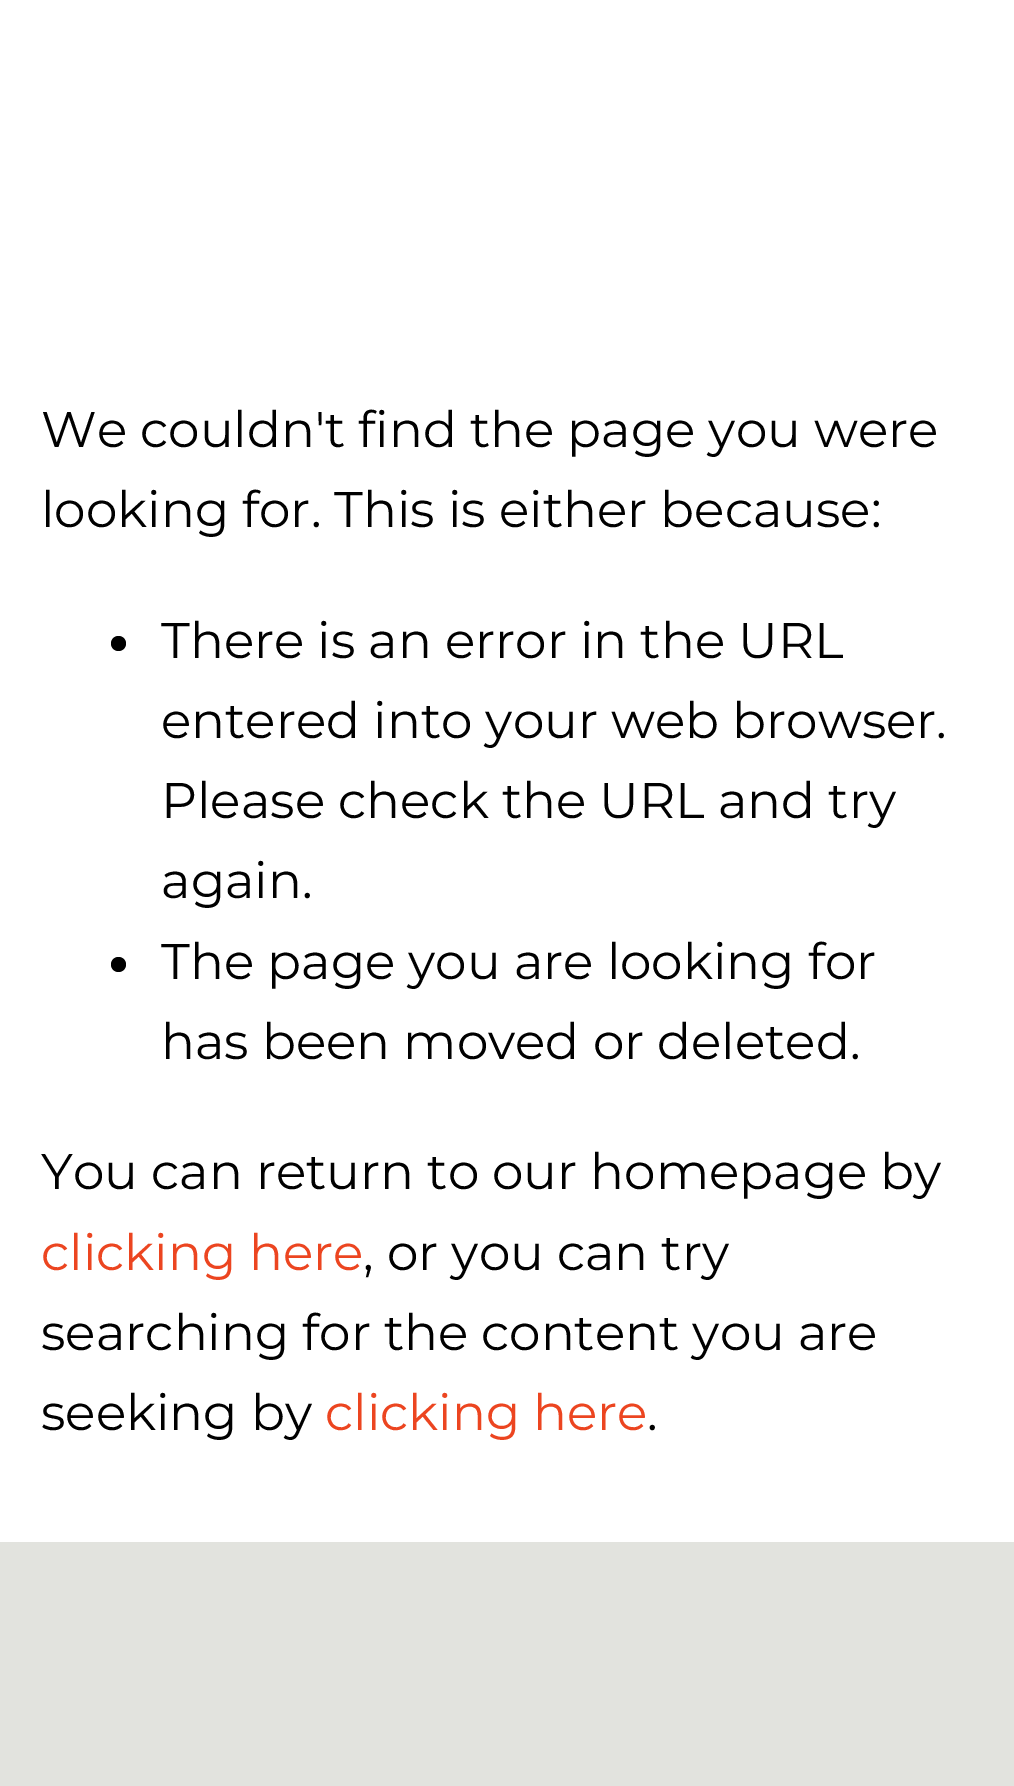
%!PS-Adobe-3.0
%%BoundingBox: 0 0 1014 1786
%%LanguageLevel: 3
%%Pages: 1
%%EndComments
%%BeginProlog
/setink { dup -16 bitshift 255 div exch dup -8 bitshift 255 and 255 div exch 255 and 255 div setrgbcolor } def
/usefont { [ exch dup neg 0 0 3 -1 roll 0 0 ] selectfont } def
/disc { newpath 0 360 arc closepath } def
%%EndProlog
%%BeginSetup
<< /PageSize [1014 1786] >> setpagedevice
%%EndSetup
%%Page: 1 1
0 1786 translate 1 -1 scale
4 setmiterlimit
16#FFFFFF setink
0 0 1014 1786 rectfill
/Montserrat-Regular 50.1 usefont
16#000000 setink
41 447 moveto (We couldn't find the page you were) show
41 527 moveto (looking for. This is either because:) show
118.5 643.5 7.5 disc fill
[
    [(There is an error in the URL) 161 658]
    [(entered into your web browser.) 161 738]
    [(Please check the URL and try) 161 818]
    [(again.) 161 898]
] { aload pop moveto show } forall
118.5 964.5 7.5 disc fill
[
    [(The page you are looking for) 161 979]
    [(has been moved or deleted.) 161 1059]
    [(You can return to our homepage by) 41 1189]
] { aload pop moveto show } forall
16#EC4520 setink
41 1270 moveto (clicking here) show
16#000000 setink
[
    [(, or you can try) 363 1270]
    [(searching for the) 41 1350]
    [(content you are) 481 1350]
    [(seeking by) 41 1430]
] { aload pop moveto show } forall
16#EC4520 setink
325 1430 moveto (clicking here) show
16#000000 setink
647 1430 moveto (.) show
16#E2E3DE setink
0 1542 1014 244 rectfill
showpage
%%EOF
